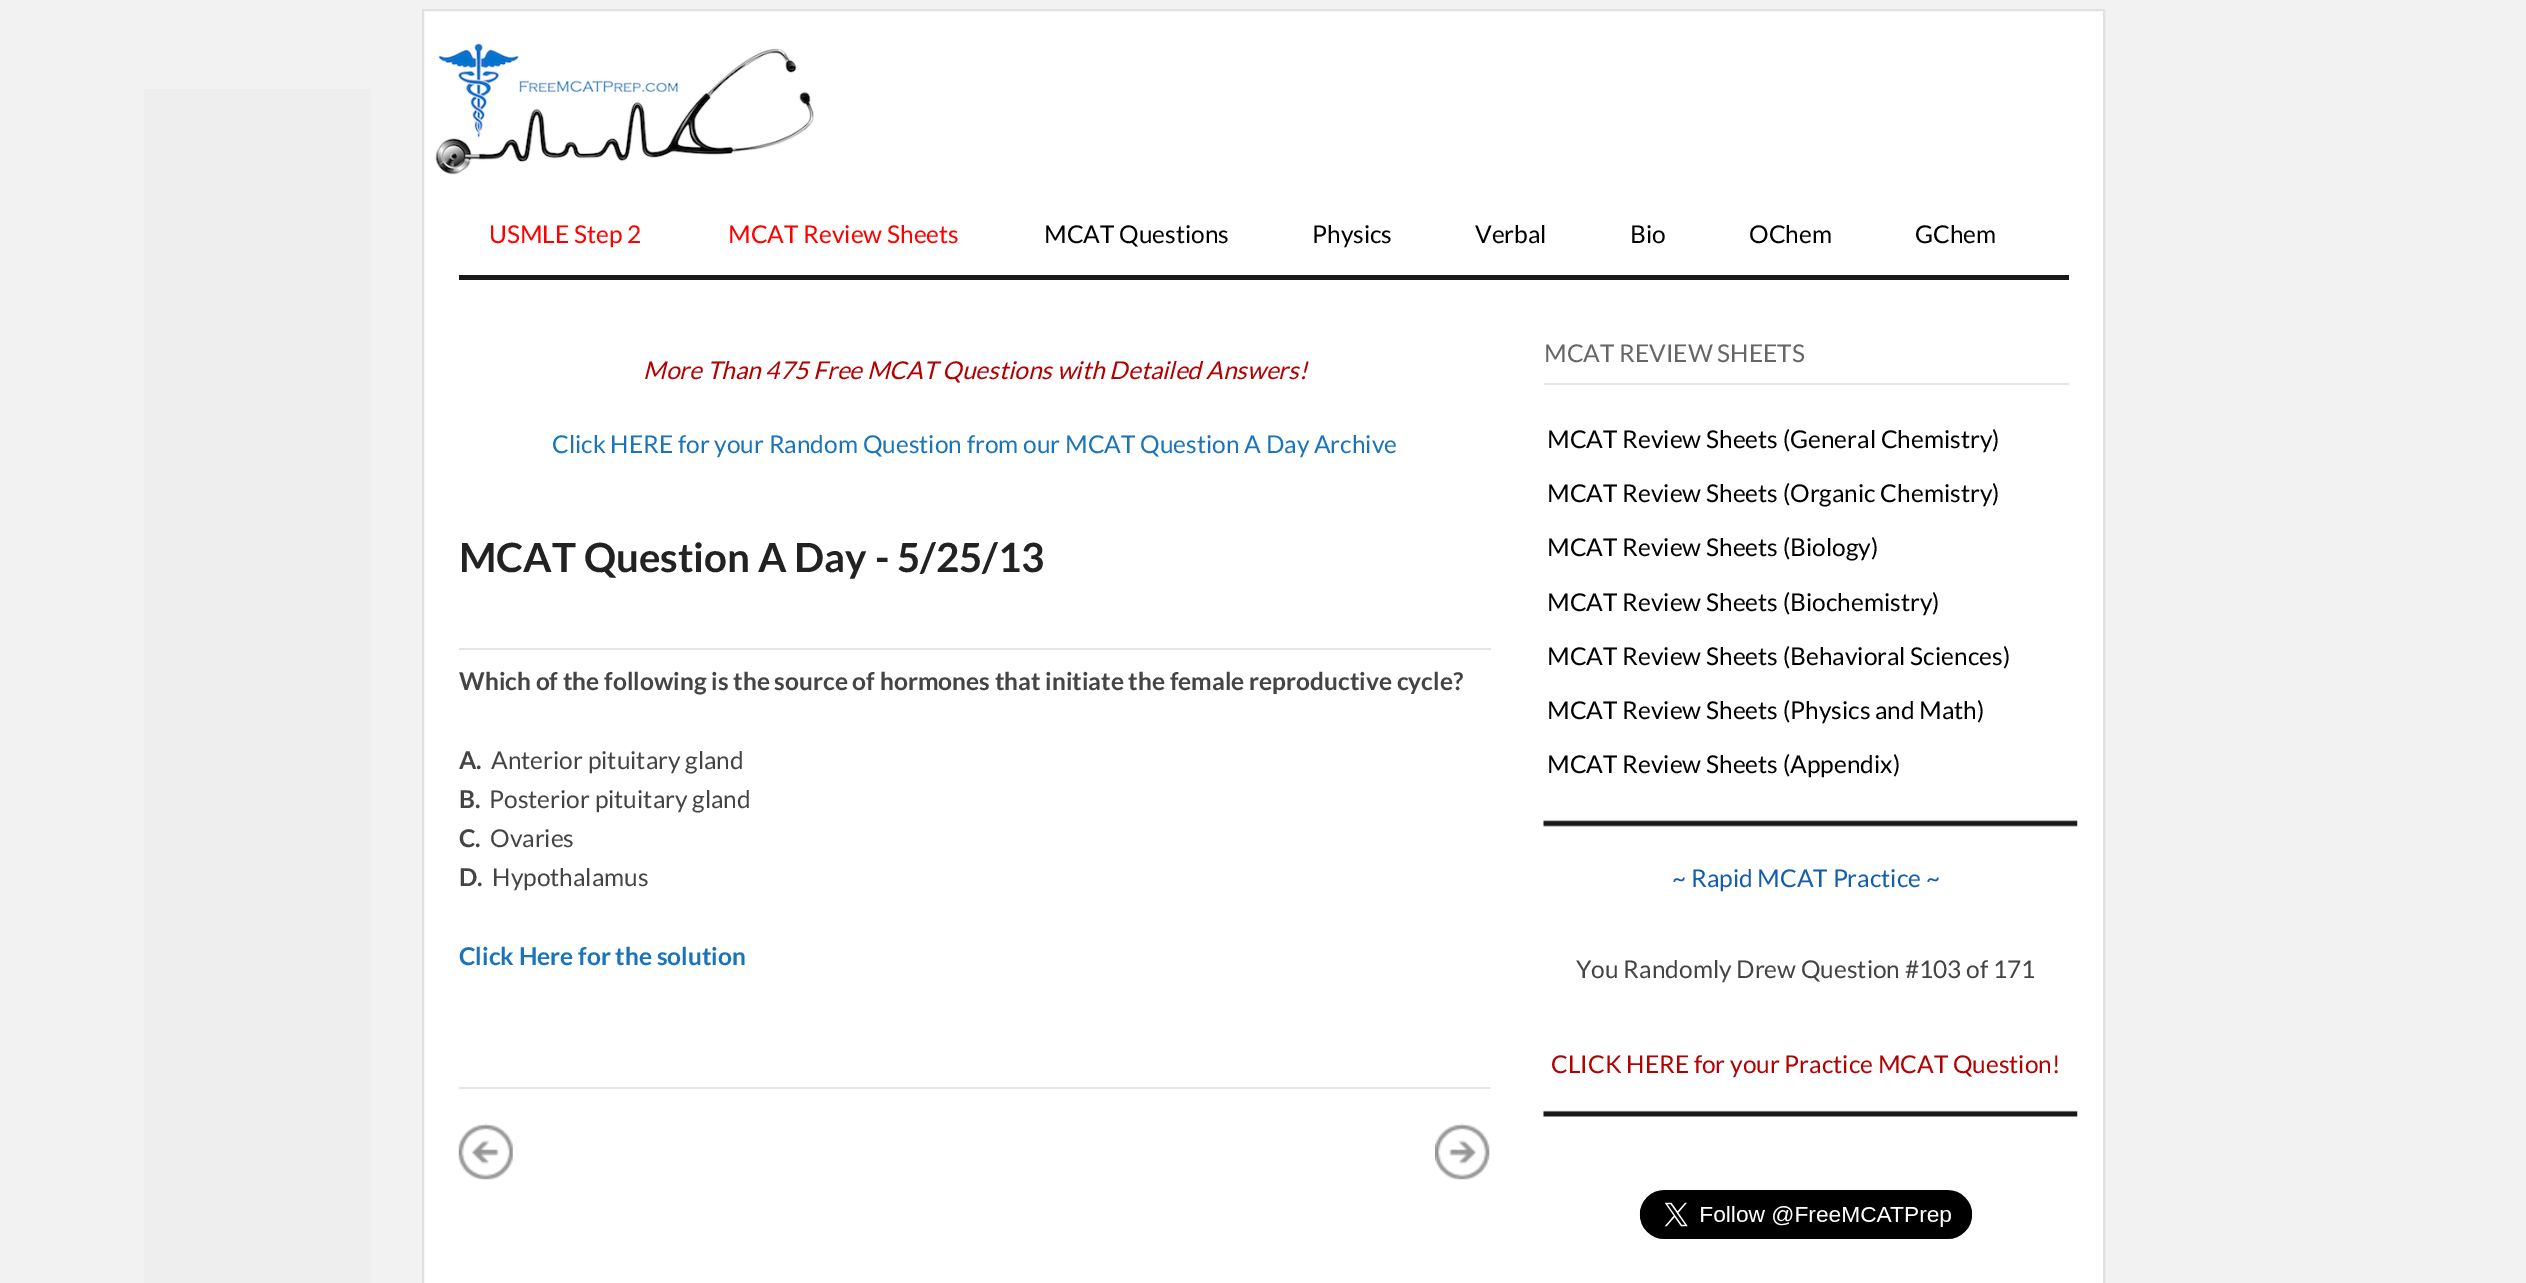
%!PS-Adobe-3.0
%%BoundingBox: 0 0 2526 1283
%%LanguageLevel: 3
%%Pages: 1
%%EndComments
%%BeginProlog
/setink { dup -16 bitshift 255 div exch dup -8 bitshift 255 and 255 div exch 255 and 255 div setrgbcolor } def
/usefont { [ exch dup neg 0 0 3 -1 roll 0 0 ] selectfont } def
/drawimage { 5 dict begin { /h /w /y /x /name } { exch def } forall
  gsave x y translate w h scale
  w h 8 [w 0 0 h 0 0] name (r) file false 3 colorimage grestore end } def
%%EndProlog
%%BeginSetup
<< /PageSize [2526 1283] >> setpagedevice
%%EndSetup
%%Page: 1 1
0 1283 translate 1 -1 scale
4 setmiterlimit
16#F2F2F2 setink
0 0 2526 1283 rectfill
16#FFFFFF setink
423 10 moveto 2104 10 lineto 2104 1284 lineto 423 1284 lineto closepath gsave fill grestore
16#E1E1E1 setink
2 setlinewidth
stroke
(img1.raw) 435 43 379 132 drawimage
16#191919 setink
459 275 1610 5 rectfill
/Lato-Regular 24.5 usefont
16#FF0000 setink
489 243 moveto (USMLE Step 2) show
728 243 moveto (MCAT Review Sheets) show
16#000000 setink
[
    [(MCAT Questions) 1044 243]
    [(Physics) 1312 243]
    [(Verbal) 1475 243]
    [(Bio) 1630 243]
    [(OChem) 1749 243]
    [(GChem) 1915 243]
] { aload pop moveto show } forall
/Lato-Italic 24.5 usefont
16#B30000 setink
643 379 moveto (More Than 475 Free MCAT Questions with Detailed Answers!) show
/Lato-Regular 24.5 usefont
16#1A74BA setink
552 453 moveto (Click HERE for your Random Question from our MCAT Question A Day Archive) show
16#EEEEEE setink
144 89 227 1194 rectfill
/Lato-Bold 40.25 usefont
16#222222 setink
459 572 moveto (MCAT Question A Day - 5/25/13) show
16#E5E5E5 setink
459 648 1032 2 rectfill
/Lato-Bold 24.5 usefont
16#444444 setink
459 690 moveto (Which of the following is the source of hormones that initiate the female reproductive cycle?) show
459 769 moveto (A.) show
/Lato-Regular 24.5 usefont
491 769 moveto (Anterior pituitary gland) show
/Lato-Bold 24.5 usefont
459 808 moveto (B.) show
/Lato-Regular 24.5 usefont
489 808 moveto (Posterior pituitary gland) show
/Lato-Bold 24.5 usefont
459 847 moveto (C.) show
/Lato-Regular 24.5 usefont
490 847 moveto (Ovaries) show
/Lato-Bold 24.5 usefont
459 886 moveto (D.) show
/Lato-Regular 24.5 usefont
492 886 moveto (Hypothalamus) show
/Lato-Bold 24.5 usefont
16#1A74BA setink
459 965 moveto (Click Here for the solution) show
16#E5E5E5 setink
459 1087 1032 2 rectfill
(img2.raw) 458 1123 55 57 drawimage
(img3.raw) 1435 1123 55 57 drawimage
1544 383 525 2 rectfill
/Lato-Regular 24.5 usefont
16#666666 setink
1544 362 moveto (MCAT REVIEW SHEETS) show
16#000000 setink
[
    [(MCAT Review Sheets \(General Chemistry\)) 1547 448]
    [(MCAT Review Sheets \(Organic Chemistry\)) 1547 502]
    [(MCAT Review Sheets \(Biology\)) 1547 556]
    [(MCAT Review Sheets \(Biochemistry\)) 1547 611]
    [(MCAT Review Sheets \(Behavioral Sciences\)) 1547 665]
    [(MCAT Review Sheets \(Physics and Math\)) 1547 719]
    [(MCAT Review Sheets \(Appendix\)) 1547 773]
] { aload pop moveto show } forall
(img4.raw) 1543 820 535 7 drawimage
16#125DAE setink
1672 887 moveto (~ Rapid MCAT Practice ~) show
16#444444 setink
1576 978 moveto (You Randomly Drew Question #103 of 171) show
16#B30000 setink
1551 1073 moveto (CLICK HERE for your Practice MCAT Question!) show
(img5.raw) 1543 1110 535 7 drawimage
(img6.raw) 1639 1190 334 49 drawimage
showpage
%%EOF
